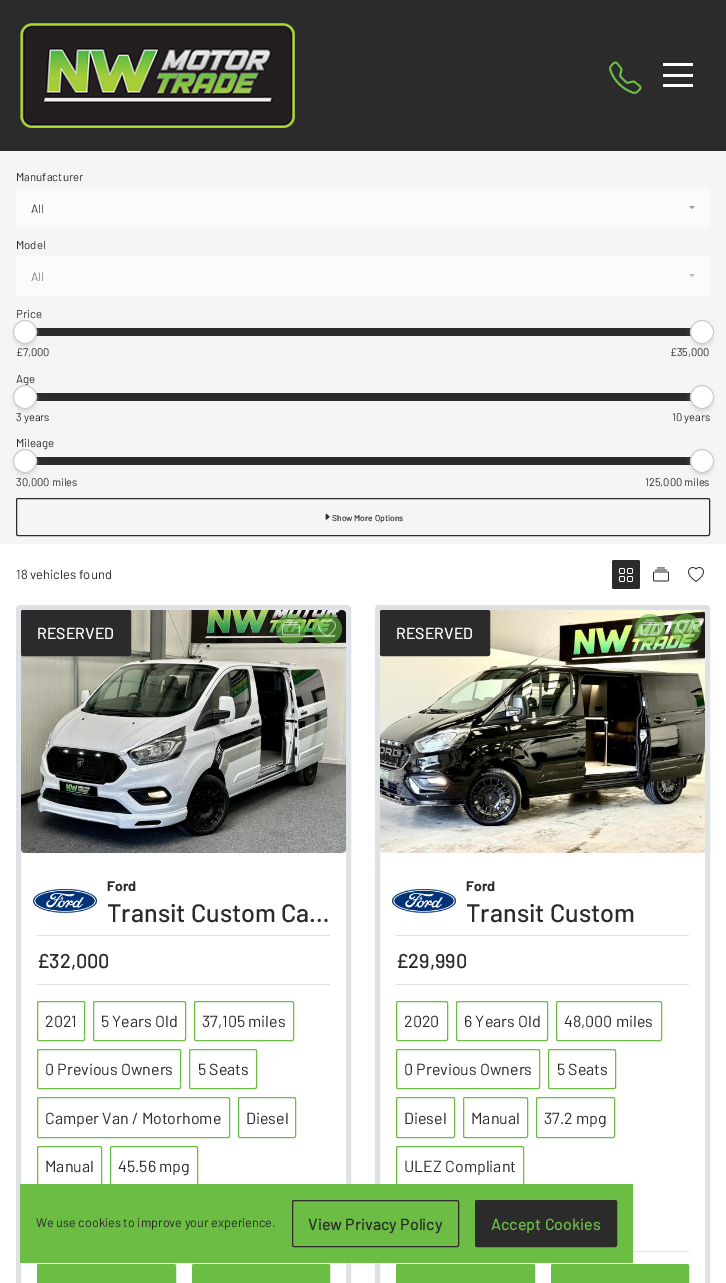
%!PS-Adobe-3.0
%%BoundingBox: 0 0 726 1283
%%LanguageLevel: 3
%%Pages: 1
%%EndComments
%%BeginProlog
/setink { dup -16 bitshift 255 div exch dup -8 bitshift 255 and 255 div exch 255 and 255 div setrgbcolor } def
/usefont { [ exch dup neg 0 0 3 -1 roll 0 0 ] selectfont } def
/setalpha { dup .setfillconstantalpha .setstrokeconstantalpha } def
/disc { newpath 0 360 arc closepath } def
/rrect { 5 dict begin { /r /h /w /y /x } { exch def } forall
  x r add y moveto x w add y 2 copy h add r arct x w add y h add x 1 index r arct
  x y h add x y r arct x y 2 copy exch w add exch r arct closepath end } def
/softshadow { 12 dict begin { /a /b /q /h /w /y /x } { exch def } forall gsave /was 0 def
  9 -2 -9 { dup b mul 4 div /e exch def 1 sub .425 mul 2.718 exch exp 1 add a .99 .min exch div /now exch def
    1 1 now sub 1 was sub div sub setalpha /was now def
    w h .min e 2 mul add 0 gt { x e sub y e sub w e 2 mul add h e 2 mul add
      q e add b .6 mul add w h .min 2 div e add .min 0 .max rrect fill } if } for grestore end } def
/drawimage { 5 dict begin { /h /w /y /x /name } { exch def } forall
  gsave x y translate w h scale
  w h 8 [w 0 0 h 0 0] name (r) file false 3 colorimage grestore end } def
%%EndProlog
%%BeginSetup
<< /PageSize [726 1283] /PageUsesTransparency true >> setpagedevice
%%EndSetup
%%Page: 1 1
0 .pushpdf14devicefilter
0 1283 translate 1 -1 scale
4 setmiterlimit
16#FFFFFF setink
0 0 726 1283 rectfill
16#2B2B2B setink
0 0 726 151 rectfill
(img1.raw) 20 23 275 105 drawimage
(img2.raw) 609 61 33 33 drawimage
[
    [663 63 30 3 16#FFFFFF]
    [663 74 30 3 16#FFFFFF]
    [663 84 30 3 16#FFFFFF]
    [0 151 726 393 16#F5F5F5]
] { aload pop setink rectfill } forall
/Barlow-Regular 11.5 usefont
16#2B2B2B setink
16 181 moveto (Manufacturer) show
16#FBFBFB setink
16 188 694 39 2 rrect fill
/Barlow-Regular 12 usefont
16#343434 setink
31 213 moveto (All) show
16#999999 setink
689 206 moveto 695 206 lineto 692 209 lineto closepath fill
/Barlow-Regular 11.5 usefont
16#2B2B2B setink
16 249 moveto (Model) show
16#FBFBFB setink
16 256 694 40 2 rrect fill
/Barlow-Regular 12 usefont
16#797979 setink
31 281 moveto (All) show
16#BBBBBB setink
689 274 moveto 695 274 lineto 692 277 lineto closepath fill
/Barlow-Regular 11.5 usefont
16#2B2B2B setink
16 318 moveto (Price) show
36 328 661 8 rectfill
16#BBBBBB setink
16 326 18 18 9 3 1 softshadow
16#FFFFFF setink
25 332 11.5 disc gsave fill grestore
16#CCCCCC setink
stroke
16#BBBBBB setink
693 326 18 18 9 3 1 softshadow
16#FFFFFF setink
702 332 11.5 disc gsave fill grestore
16#CCCCCC setink
stroke
/Barlow-Regular 11 usefont
16#2B2B2B setink
16 356 moveto (£7,000) show
670 356 moveto (£35,000) show
/Barlow-Regular 11.5 usefont
16 383 moveto (Age) show
36 393 661 8 rectfill
16#BBBBBB setink
16 391 18 18 9 3 1 softshadow
16#FFFFFF setink
25 397 11.5 disc gsave fill grestore
16#CCCCCC setink
stroke
16#BBBBBB setink
693 391 18 18 9 3 1 softshadow
16#FFFFFF setink
702 397 11.5 disc gsave fill grestore
16#CCCCCC setink
stroke
/Barlow-Regular 11 usefont
16#2B2B2B setink
16 421 moveto (3 years) show
672 421 moveto (10 years) show
/Barlow-Regular 11.5 usefont
16 447 moveto (Mileage) show
36 457 661 8 rectfill
16#BBBBBB setink
16 455 18 18 9 3 1 softshadow
16#FFFFFF setink
25 461 11.5 disc gsave fill grestore
16#CCCCCC setink
stroke
16#BBBBBB setink
693 455 18 18 9 3 1 softshadow
16#FFFFFF setink
702 461 11.5 disc gsave fill grestore
16#CCCCCC setink
stroke
/Barlow-Regular 11 usefont
16#2B2B2B setink
16 486 moveto (30,000 miles) show
645 486 moveto (125,000 miles) show
16.5 498.5 693 37 1.5 rrect stroke
(img3.raw) 325 513 5 7 drawimage
/Barlow-Medium 8.5 usefont
332 521 moveto (Show More Options) show
/Barlow-Regular 13 usefont
16 579 moveto (18 vehicles found) show
612 560 28 29 2 rrect fill
(img4.raw) 619 568 14 14 drawimage
(img5.raw) 653 567 16 15 drawimage
(img6.raw) 688 567 16 15 drawimage
16#DEE2E6 setink
5 setlinewidth
18.5 607.5 330 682 1.5 rrect stroke
(img7.raw) 21 610 325 243 drawimage
16#2B2B2B setink
21.5 610.5 109 45 1.5 rrect gsave fill grestore
1 setlinewidth
stroke
/Barlow-Medium 16 usefont
16#FFFFFF setink
37 639 moveto (RESERVED) show
0.6 setalpha
16#6BBD44 setink
291 629 15 disc fill
1 setalpha
(img8.raw) 282 619 18 17 drawimage
0.6 setalpha
327 629 15 disc fill
1 setalpha
(img9.raw) 318 620 18 17 drawimage
(img10.raw) 33 889 64 24 drawimage
/Barlow-Bold 14 usefont
16#2B2B2B setink
107 891 moveto (Ford) show
/Barlow-Medium 25.25 usefont
107 922 moveto (Transit Custom Ca…) show
16#DEE2E6 setink
37 935 293 1 rectfill
/Barlow-Medium 20 usefont
16#2B2B2B setink
37 968 moveto (£32,000) show
16#DEE2E6 setink
37 984 293 1 rectfill
16#6BBD44 setink
37.5 1001.5 47 39 1.5 rrect stroke
/Barlow-Regular 16 usefont
16#2B2B2B setink
45 1027 moveto (2021) show
16#6BBD44 setink
93.5 1001.5 92 39 1.5 rrect stroke
16#2B2B2B setink
101 1027 moveto (5 Years Old) show
16#6BBD44 setink
194.5 1001.5 99 39 1.5 rrect stroke
16#2B2B2B setink
202 1027 moveto (37,105 miles) show
16#6BBD44 setink
37.5 1049.5 143 39 1.5 rrect stroke
16#2B2B2B setink
45 1075 moveto (0 Previous Owners) show
16#6BBD44 setink
189.5 1049.5 67 39 1.5 rrect stroke
16#2B2B2B setink
198 1075 moveto (5 Seats) show
16#6BBD44 setink
37.5 1097.5 192 40 1.5 rrect stroke
16#2B2B2B setink
45 1124 moveto (Camper Van / Motorhome) show
16#6BBD44 setink
238.5 1097.5 57 40 1.5 rrect stroke
16#2B2B2B setink
246 1124 moveto (Diesel) show
16#6BBD44 setink
37.5 1146.5 64 39 1.5 rrect stroke
16#2B2B2B setink
45 1172 moveto (Manual) show
16#6BBD44 setink
110.5 1146.5 87 39 1.5 rrect stroke
16#2B2B2B setink
118 1172 moveto (45.56 mpg) show
16#6BBD44 setink
37.5 1264.5 138 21 1.5 rrect gsave fill grestore
stroke
192.5 1264.5 137 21 1.5 rrect gsave fill grestore
stroke
16#DEE2E6 setink
5 setlinewidth
377.5 607.5 330 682 1.5 rrect stroke
(img11.raw) 380 610 325 243 drawimage
16#2B2B2B setink
380.5 610.5 109 45 1.5 rrect gsave fill grestore
1 setlinewidth
stroke
/Barlow-Medium 16 usefont
16#FFFFFF setink
396 639 moveto (RESERVED) show
0.6 setalpha
16#6BBD44 setink
650 629 15 disc fill
1 setalpha
(img12.raw) 641 619 18 17 drawimage
0.6 setalpha
686 629 15 disc fill
1 setalpha
(img13.raw) 677 620 18 17 drawimage
(img14.raw) 392 889 64 24 drawimage
/Barlow-Bold 14 usefont
16#2B2B2B setink
466 891 moveto (Ford) show
/Barlow-Medium 25.25 usefont
466 922 moveto (Transit Custom) show
16#DEE2E6 setink
396 935 293 1 rectfill
/Barlow-Medium 20 usefont
16#2B2B2B setink
396 968 moveto (£29,990) show
16#DEE2E6 setink
396 984 293 1 rectfill
16#6BBD44 setink
396.5 1001.5 51 39 1.5 rrect stroke
/Barlow-Regular 16 usefont
16#2B2B2B setink
404 1027 moveto (2020) show
16#6BBD44 setink
456.5 1001.5 91 39 1.5 rrect stroke
16#2B2B2B setink
464 1027 moveto (6 Years Old) show
16#6BBD44 setink
556.5 1001.5 105 39 1.5 rrect stroke
16#2B2B2B setink
564 1027 moveto (48,000 miles) show
16#6BBD44 setink
396.5 1049.5 143 39 1.5 rrect stroke
16#2B2B2B setink
404 1075 moveto (0 Previous Owners) show
16#6BBD44 setink
548.5 1049.5 67 39 1.5 rrect stroke
16#2B2B2B setink
557 1075 moveto (5 Seats) show
16#6BBD44 setink
396.5 1097.5 58 40 1.5 rrect stroke
16#2B2B2B setink
404 1124 moveto (Diesel) show
16#6BBD44 setink
463.5 1097.5 64 40 1.5 rrect stroke
16#2B2B2B setink
471 1124 moveto (Manual) show
16#6BBD44 setink
536.5 1097.5 78 40 1.5 rrect stroke
16#2B2B2B setink
544 1124 moveto (37.2 mpg) show
16#6BBD44 setink
396.5 1146.5 127 39 1.5 rrect stroke
16#2B2B2B setink
404 1172 moveto (ULEZ Compliant) show
16#DEE2E6 setink
633 1251 56 1 rectfill
16#6BBD44 setink
396.5 1264.5 138 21 1.5 rrect gsave fill grestore
stroke
551.5 1264.5 137 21 1.5 rrect gsave fill grestore
stroke
20 1184 613 79 rectfill
/Barlow-Regular 12.6 usefont
16#2B2B2B setink
36 1227 moveto (We use cookies to improve your experience.) show
292.5 1200.5 166 46 1.5 rrect stroke
/Barlow-Medium 16 usefont
308 1230 moveto (View Privacy Policy) show
475.5 1200.5 141 46 1.5 rrect gsave fill grestore
stroke
16#6BBD44 setink
491 1230 moveto (Accept Cookies) show
.poppdf14devicefilter showpage
%%EOF
